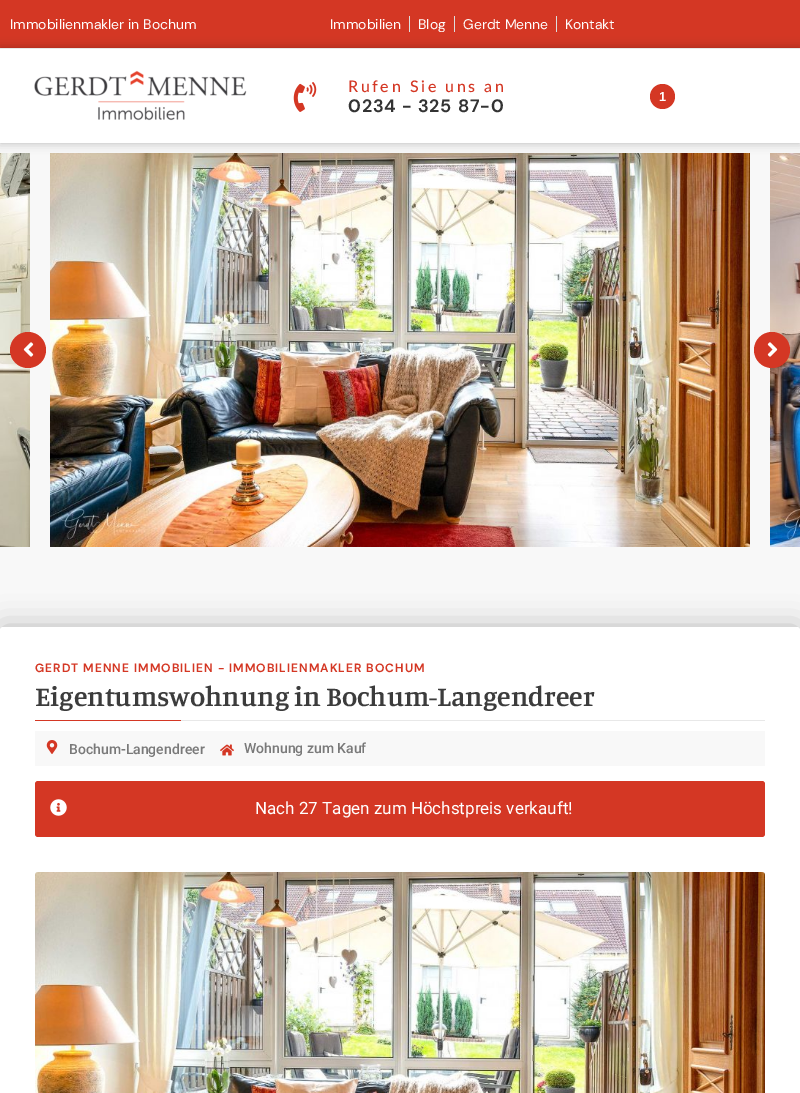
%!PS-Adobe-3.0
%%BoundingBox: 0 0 800 1093
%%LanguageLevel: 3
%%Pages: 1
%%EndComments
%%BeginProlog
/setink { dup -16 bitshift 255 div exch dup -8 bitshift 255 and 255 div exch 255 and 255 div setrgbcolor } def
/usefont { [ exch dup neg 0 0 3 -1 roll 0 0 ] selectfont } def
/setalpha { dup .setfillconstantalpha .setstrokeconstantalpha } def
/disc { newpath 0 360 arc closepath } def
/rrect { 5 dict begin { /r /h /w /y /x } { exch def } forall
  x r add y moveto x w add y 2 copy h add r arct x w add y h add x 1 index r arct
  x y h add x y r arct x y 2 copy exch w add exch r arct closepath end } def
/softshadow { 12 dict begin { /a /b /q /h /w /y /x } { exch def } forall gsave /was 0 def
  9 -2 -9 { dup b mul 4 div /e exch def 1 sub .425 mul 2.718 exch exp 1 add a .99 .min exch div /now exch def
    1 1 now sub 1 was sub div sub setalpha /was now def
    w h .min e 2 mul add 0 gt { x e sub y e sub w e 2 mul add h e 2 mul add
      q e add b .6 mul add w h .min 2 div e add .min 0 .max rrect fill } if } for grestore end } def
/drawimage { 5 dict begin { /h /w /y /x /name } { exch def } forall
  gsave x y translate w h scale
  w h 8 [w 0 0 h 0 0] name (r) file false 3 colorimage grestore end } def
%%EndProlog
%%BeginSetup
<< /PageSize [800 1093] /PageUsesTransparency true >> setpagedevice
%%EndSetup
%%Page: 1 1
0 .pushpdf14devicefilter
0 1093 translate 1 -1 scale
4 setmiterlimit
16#F8F8F8 setink
0 0 800 1093 rectfill
16#D43724 setink
0 0 800 48 rectfill
/DMSans-Regular 14 usefont
16#FFFFFF setink
10 29 moveto (Immobilienmakler in Bochum) show
330 29 moveto (Immobilien) show
16#DDDDDD setink
409 16 1 16 rectfill
gsave
330 16 460 16 rectclip
16#FFFFFF setink
418 29 moveto (Blog) show
grestore
454 16 1 16 rectfill
16#FFFFFF setink
463 29 moveto (Gerdt Menne) show
16#DDDDDD setink
556 16 1 16 rectfill
16#FFFFFF setink
565 29 moveto (Kontakt) show
(img3.raw) 0 153 30 394 drawimage
(img4.raw) 50 153 700 394 drawimage
(img5.raw) 770 153 30 394 drawimage
16#000000 setink
0 48 800 95 0 5 0.25 softshadow
16#FFFFFF setink
0 49 800 94 rectfill
16#E8E8E8 setink
0 48 800 1 rectfill
(img1.raw) 34 70 213 51 drawimage
(img2.raw) 293 82 24 30 drawimage
/Lato-Medium 16 usefont
16#D43724 setink
348 92 moveto 2.6 0 (Rufen Sie uns an) ashow
/DMSans-Bold 18 usefont
16#333333 setink
348 112 moveto 0.9 0 (0234 - 325 87-0) ashow
16#D43724 setink
662.5 96.5 12.5 disc fill
/LiberationSans-Bold 13 usefont
16#FFFFFF setink
659 101 moveto (1) show
16#D43724 setink
28 350 18 disc fill
(img6.raw) 23 342 11 15 drawimage
772 350 18 disc fill
(img7.raw) 767 342 11 15 drawimage
16#000000 setink
0 627 800 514 3 15 0.25 softshadow
16#FFFFFF setink
0 627 800 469 3 rrect fill
/DMSans-Bold 12 usefont
16#D43724 setink
35 672 moveto 1 0 (GERDT MENNE IMMOBILIEN - IMMOBILIENMAKLER BOCHUM) ashow
16#E8E8E8 setink
181 720 584 1 rectfill
/Manuale-SemiBold 28 usefont
16#3C3C3C setink
35 706 moveto (Eigentumswohnung in Bochum-Langendreer) show
16#D43724 setink
35 720 146 1 rectfill
16#F8F8F8 setink
35 731 730 35 rectfill
(img8.raw) 46 740 12 14 drawimage
/Roboto-Medium 14 usefont
16#797979 setink
69 754 moveto (Bochum-Langendreer) show
(img9.raw) 220 744 14 12 drawimage
244 753 moveto (Wohnung zum Kauf) show
16#D43724 setink
35 781 730 56 3 rrect fill
(img10.raw) 50 799 17 17 drawimage
/Roboto-Regular 17 usefont
16#FFFFFF setink
255 814 moveto (Nach 27 Tagen zum Höchstpreis verkauft!) show
(img11.raw) 35 872 730 221 drawimage
.poppdf14devicefilter showpage
%%EOF
